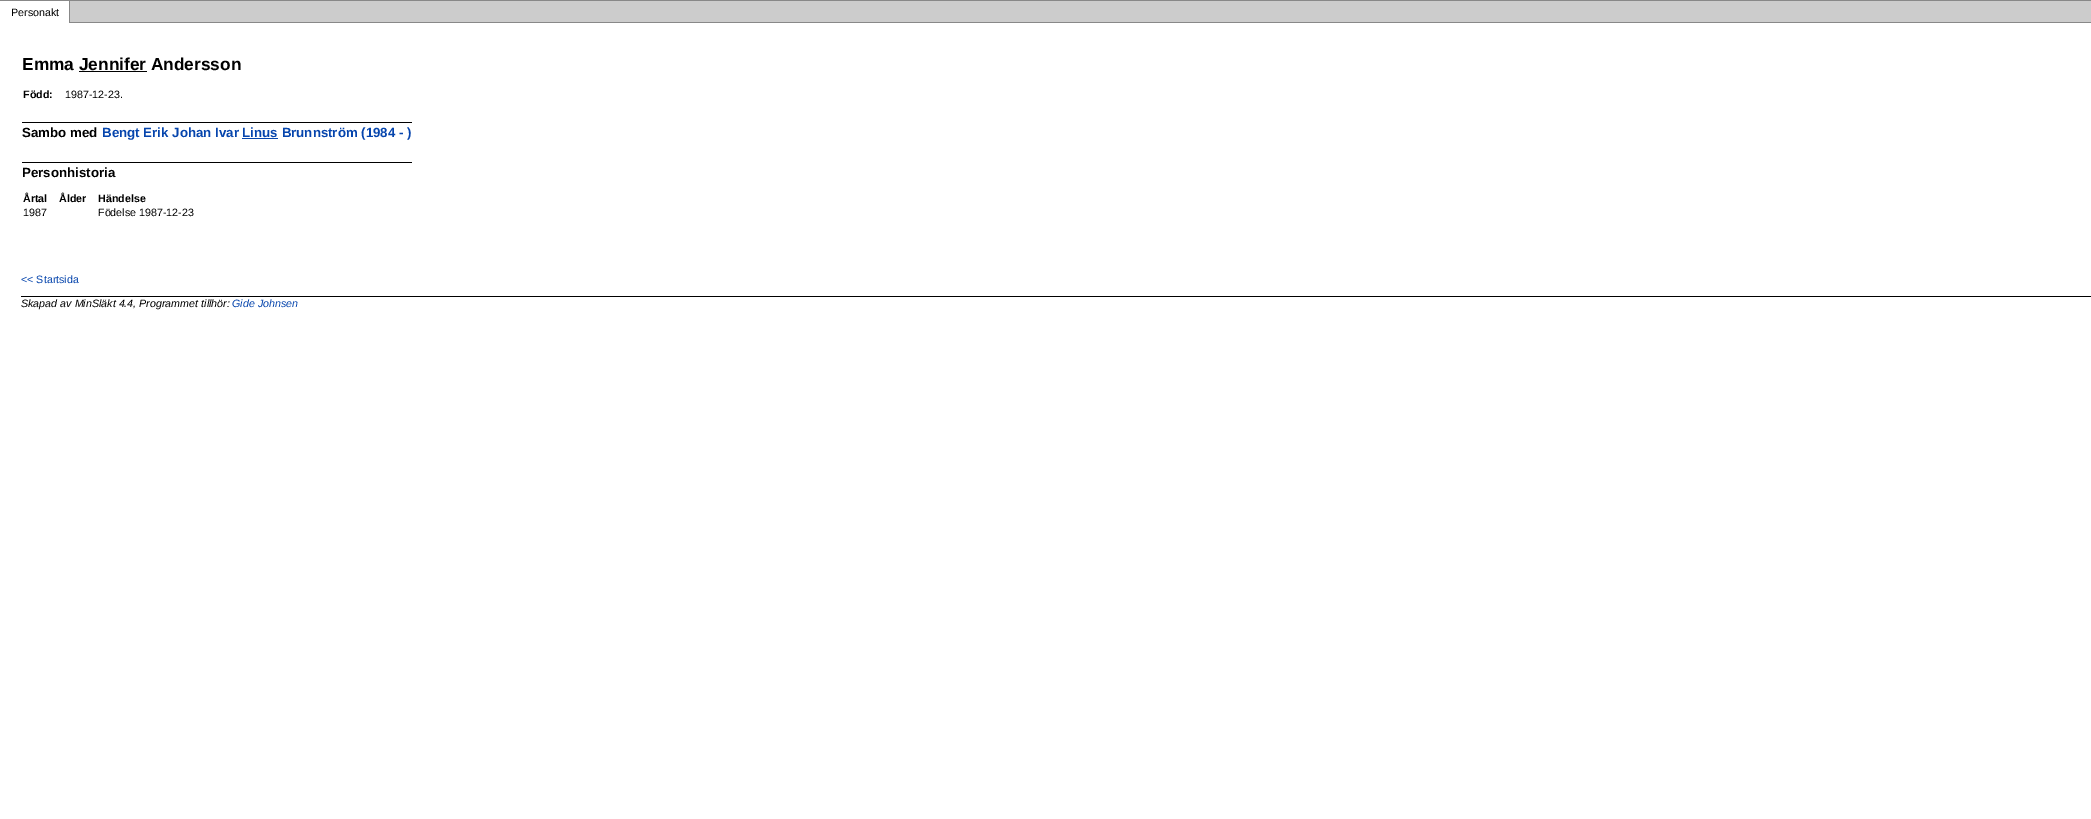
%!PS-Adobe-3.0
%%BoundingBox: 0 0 2091 819
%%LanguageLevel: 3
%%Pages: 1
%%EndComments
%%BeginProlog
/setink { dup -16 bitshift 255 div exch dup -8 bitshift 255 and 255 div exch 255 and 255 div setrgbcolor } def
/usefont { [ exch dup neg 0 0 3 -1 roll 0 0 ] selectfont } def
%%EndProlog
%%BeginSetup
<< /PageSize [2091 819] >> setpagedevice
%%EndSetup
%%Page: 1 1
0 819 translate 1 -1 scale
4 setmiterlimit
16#FFFFFF setink
0 0 2091 819 rectfill
16#888888 setink
0 0 2091 1 rectfill
69 0 1 23 rectfill
/LiberationSans-Regular 10.7 usefont
16#000000 setink
11 16 moveto (Personakt) show
16#CCCCCC setink
70 1 2021 21 rectfill
16#888888 setink
70 22 2021 1 rectfill
/LiberationSans-Bold 17.3 usefont
16#000000 setink
22 70 moveto (Emma Jennifer Andersson) show
79 71 68 1 rectfill
/LiberationSans-Bold 10.7 usefont
23 98 moveto (Född:) show
/LiberationSans-Regular 10.7 usefont
65 98 moveto (1987-12-23.) show
22 122 390 1 rectfill
/LiberationSans-Bold 13.3 usefont
22 137 moveto (Sambo med) show
16#0645AD setink
102 137 moveto (Bengt Erik Johan Ivar Linus Brunnström \(1984 - \)) show
242 138 36 1 rectfill
16#000000 setink
22 162 390 1 rectfill
22 177 moveto (Personhistoria) show
/LiberationSans-Bold 10.7 usefont
[
    [(Årtal) 23 202]
    [(Ålder) 59 202]
    [(Händelse) 98 202]
] { aload pop moveto show } forall
/LiberationSans-Regular 10.7 usefont
23 216 moveto (1987) show
98 216 moveto (Födelse 1987-12-23) show
16#0645AD setink
21 283 moveto (<< Startsida) show
16#000000 setink
21 296 2070 1 rectfill
/LiberationSans-Italic 10.7 usefont
21 307 moveto (Skapad av MinSläkt 4.4, Programmet tillhör:) show
16#0645AD setink
232 307 moveto (Gide Johnsen) show
showpage
%%EOF
